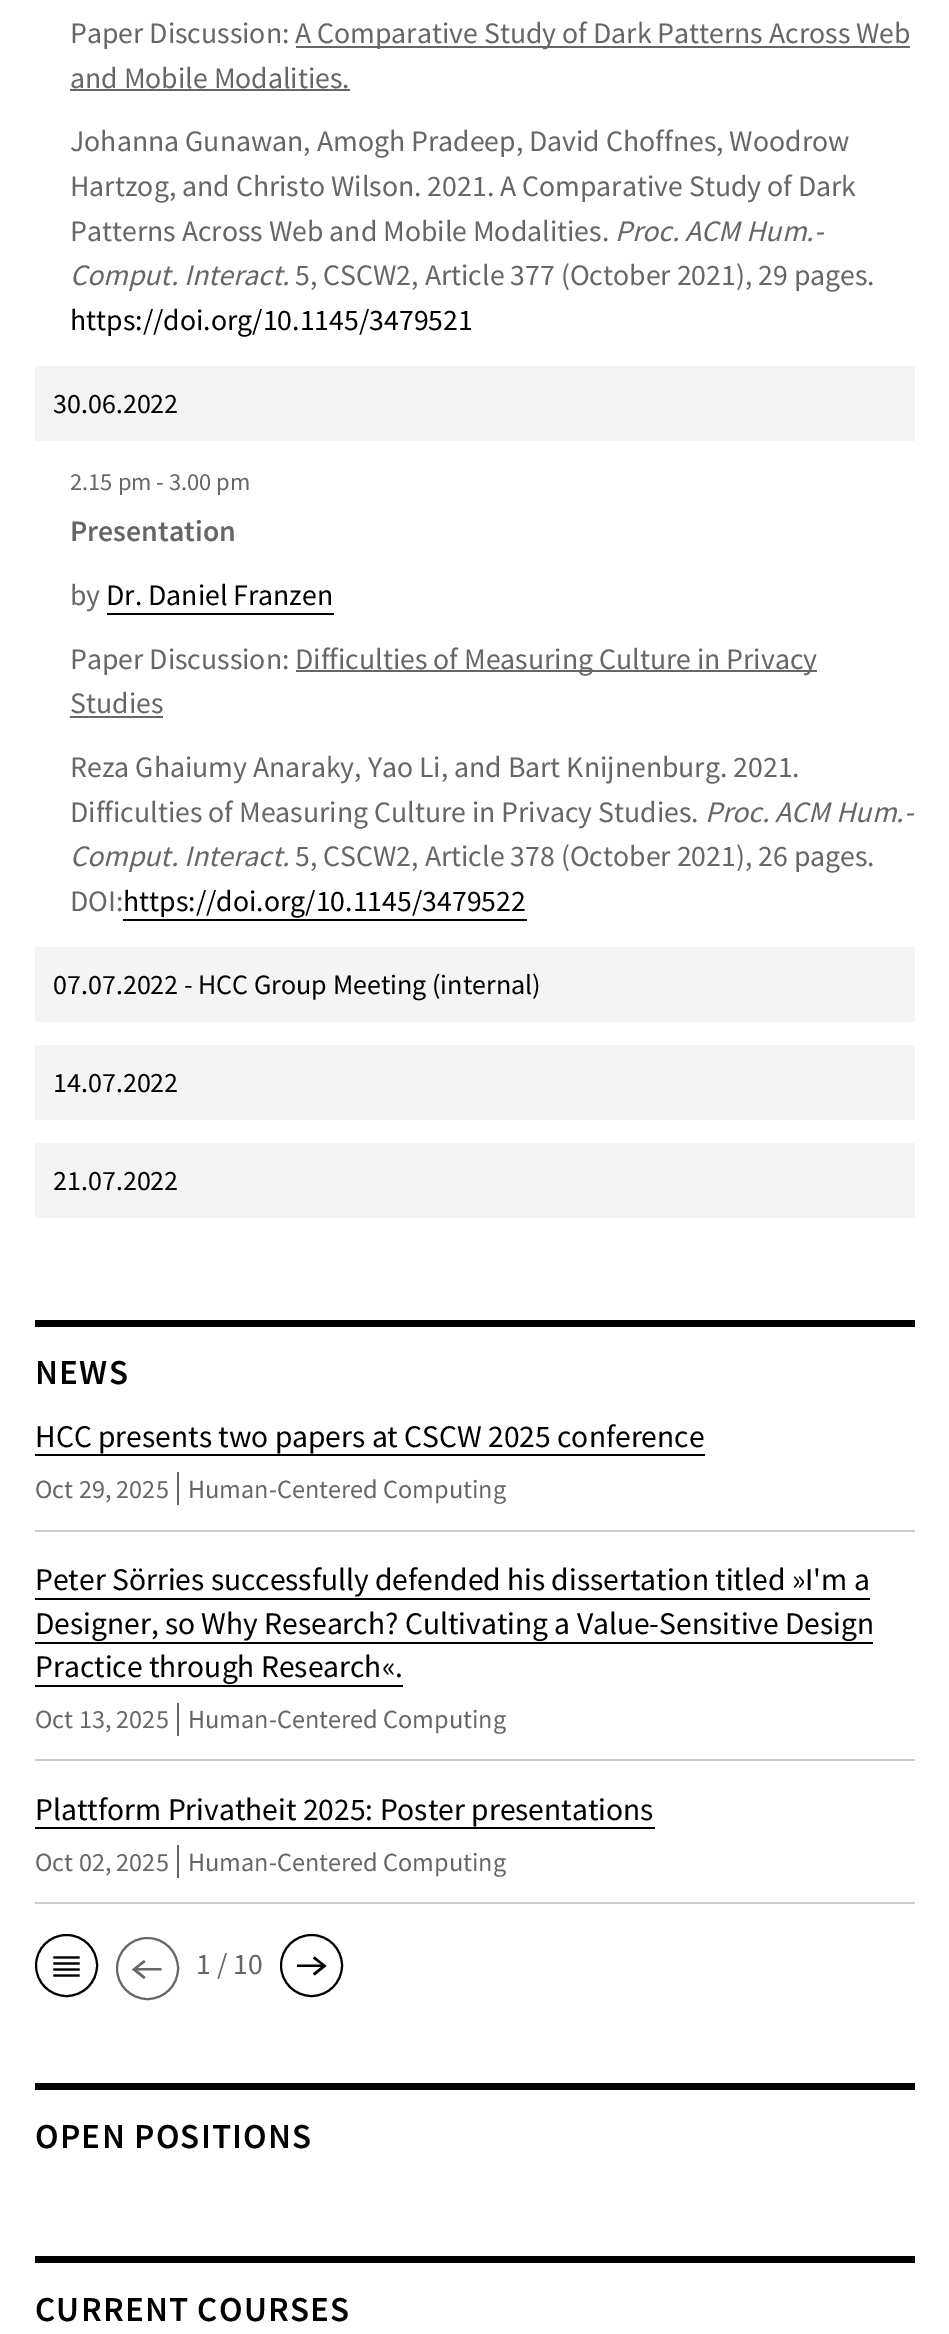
%!PS-Adobe-3.0
%%BoundingBox: 0 0 949 2334
%%LanguageLevel: 3
%%Pages: 1
%%EndComments
%%BeginProlog
/setink { dup -16 bitshift 255 div exch dup -8 bitshift 255 and 255 div exch 255 and 255 div setrgbcolor } def
/usefont { [ exch dup neg 0 0 3 -1 roll 0 0 ] selectfont } def
/disc { newpath 0 360 arc closepath } def
/drawimage { 5 dict begin { /h /w /y /x /name } { exch def } forall
  gsave x y translate w h scale
  w h 8 [w 0 0 h 0 0] name (r) file false 3 colorimage grestore end } def
%%EndProlog
%%BeginSetup
<< /PageSize [949 2334] >> setpagedevice
%%EndSetup
%%Page: 1 1
0 2334 translate 1 -1 scale
4 setmiterlimit
16#FFFFFF setink
0 0 949 2334 rectfill
/SourceSansPro-Regular 29.75 usefont
16#666666 setink
70 43 moveto (Paper Discussion:) show
296 46 614 2 rectfill
295 43 moveto (A Comparative Study of Dark Patterns Across Web) show
70 88 moveto (and Mobile Modalities.) show
70 89 280 2 rectfill
[
    [(Johanna Gunawan, Amogh Pradeep, David Choffnes, Woodrow) 70 151]
    [(Hartzog, and Christo Wilson. 2021. A Comparative Study of Dark) 70 196]
    [(Patterns Across Web and Mobile Modalities.) 70 241]
] { aload pop moveto show } forall
/SourceSansPro-Italic 29.75 usefont
615 241 moveto (Proc. ACM Hum.-) show
70 285 moveto (Comput. Interact.) show
/SourceSansPro-Regular 29.75 usefont
295 285 moveto (5, CSCW2, Article 377 \(October 2021\), 29 pages.) show
16#000000 setink
70 330 moveto (https://doi.org/10.1145/3479521) show
16#F4F4F4 setink
35 366 880 75 rectfill
/SourceSansPro-Regular 28 usefont
16#000000 setink
53 413 moveto (30.06.2022) show
/SourceSansPro-Regular 24.5 usefont
16#666666 setink
70 490 moveto (2.15 pm - 3.00 pm) show
/SourceSansPro-SemiBold 29.75 usefont
70 541 moveto (Presentation) show
/SourceSansPro-Regular 29.75 usefont
70 605 moveto (by) show
16#000000 setink
106 605 moveto (Dr. Daniel Franzen) show
107 613 227 2 rectfill
16#666666 setink
70 669 moveto (Paper Discussion:) show
296 670 521 2 rectfill
295 669 moveto (Difficulties of Measuring Culture in Privacy) show
70 713 moveto (Studies) show
70 716 93 2 rectfill
70 777 moveto (Reza Ghaiumy Anaraky, Yao Li, and Bart Knijnenburg. 2021.) show
70 822 moveto (Difficulties of Measuring Culture in Privacy Studies.) show
/SourceSansPro-Italic 29.75 usefont
705 822 moveto (Proc. ACM Hum.-) show
70 866 moveto (Comput. Interact.) show
/SourceSansPro-Regular 29.75 usefont
295 866 moveto (5, CSCW2, Article 378 \(October 2021\), 26 pages.) show
70 911 moveto (DOI:) show
16#000000 setink
123 911 moveto (https://doi.org/10.1145/3479522) show
123 919 404 2 rectfill
16#F4F4F4 setink
35 947 880 75 rectfill
/SourceSansPro-Regular 28 usefont
16#000000 setink
53 994 moveto (07.07.2022 - HCC Group Meeting \(internal\)) show
16#F4F4F4 setink
35 1045 880 75 rectfill
16#000000 setink
53 1092 moveto (14.07.2022) show
16#F4F4F4 setink
35 1143 880 75 rectfill
16#000000 setink
53 1190 moveto (21.07.2022) show
35 1320 880 7 rectfill
/SourceSansPro-SemiBold 35 usefont
35 1384 moveto 1.25 0 (NEWS) ashow
16#CCCCCC setink
35 1530 880 2 rectfill
/SourceSansPro-Regular 31.5 usefont
16#000000 setink
35 1447 moveto (HCC presents two papers at CSCW 2025 conference) show
35 1454 670 2 rectfill
/SourceSansPro-Regular 26.25 usefont
16#666666 setink
35 1498 moveto (Oct 29, 2025) show
188 1498 moveto (Human-Centered Computing) show
177 1472 2 33 rectfill
16#CCCCCC setink
35 1759 880 2 rectfill
/SourceSansPro-Regular 31.5 usefont
16#000000 setink
35 1590 moveto (Peter Sörries successfully defended his dissertation titled »I'm a) show
35 1598 835 2 rectfill
35 1634 moveto (Designer, so Why Research? Cultivating a Value-Sensitive Design) show
35 1642 838 2 rectfill
35 1677 moveto (Practice through Research«.) show
35 1685 368 2 rectfill
/SourceSansPro-Regular 26.25 usefont
16#666666 setink
35 1728 moveto (Oct 13, 2025) show
188 1728 moveto (Human-Centered Computing) show
177 1703 2 33 rectfill
16#CCCCCC setink
35 1902 880 2 rectfill
/SourceSansPro-Regular 31.5 usefont
16#000000 setink
35 1820 moveto (Plattform Privatheit 2025: Poster presentations) show
35 1827 620 2 rectfill
/SourceSansPro-Regular 26.25 usefont
16#666666 setink
35 1871 moveto (Oct 02, 2025) show
188 1871 moveto (Human-Centered Computing) show
177 1845 2 33 rectfill
16#000000 setink
2 setlinewidth
66.5 1965.5 30.5 disc stroke
(img1.raw) 53 1956 27 21 drawimage
16#666666 setink
147.5 1968.5 30.5 disc stroke
161.5 1968 moveto 137.5 1968 lineto 145.5 1962 lineto 144 1960 lineto 132 1969.5 lineto 144 1979 lineto 145.5 1977 lineto 137.5 1970.5 lineto 161.5 1970.5 lineto closepath fill
/SourceSansPro-Regular 29.75 usefont
196 1974 moveto (1 / 10) show
16#000000 setink
311.5 1965.5 30.5 disc stroke
314.5 1956.5 moveto 313 1958.5 lineto 321 1964.5 lineto 297 1964.5 lineto 297 1967 lineto 321 1967 lineto 313 1973.5 lineto 314.5 1975.5 lineto 326.5 1966 lineto closepath fill
35 2083 880 7 rectfill
/SourceSansPro-SemiBold 35 usefont
35 2148 moveto 1.25 0 (OPEN POSITIONS) ashow
35 2256 880 7 rectfill
35 2321 moveto 1.25 0 (CURRENT COURSES) ashow
showpage
%%EOF
